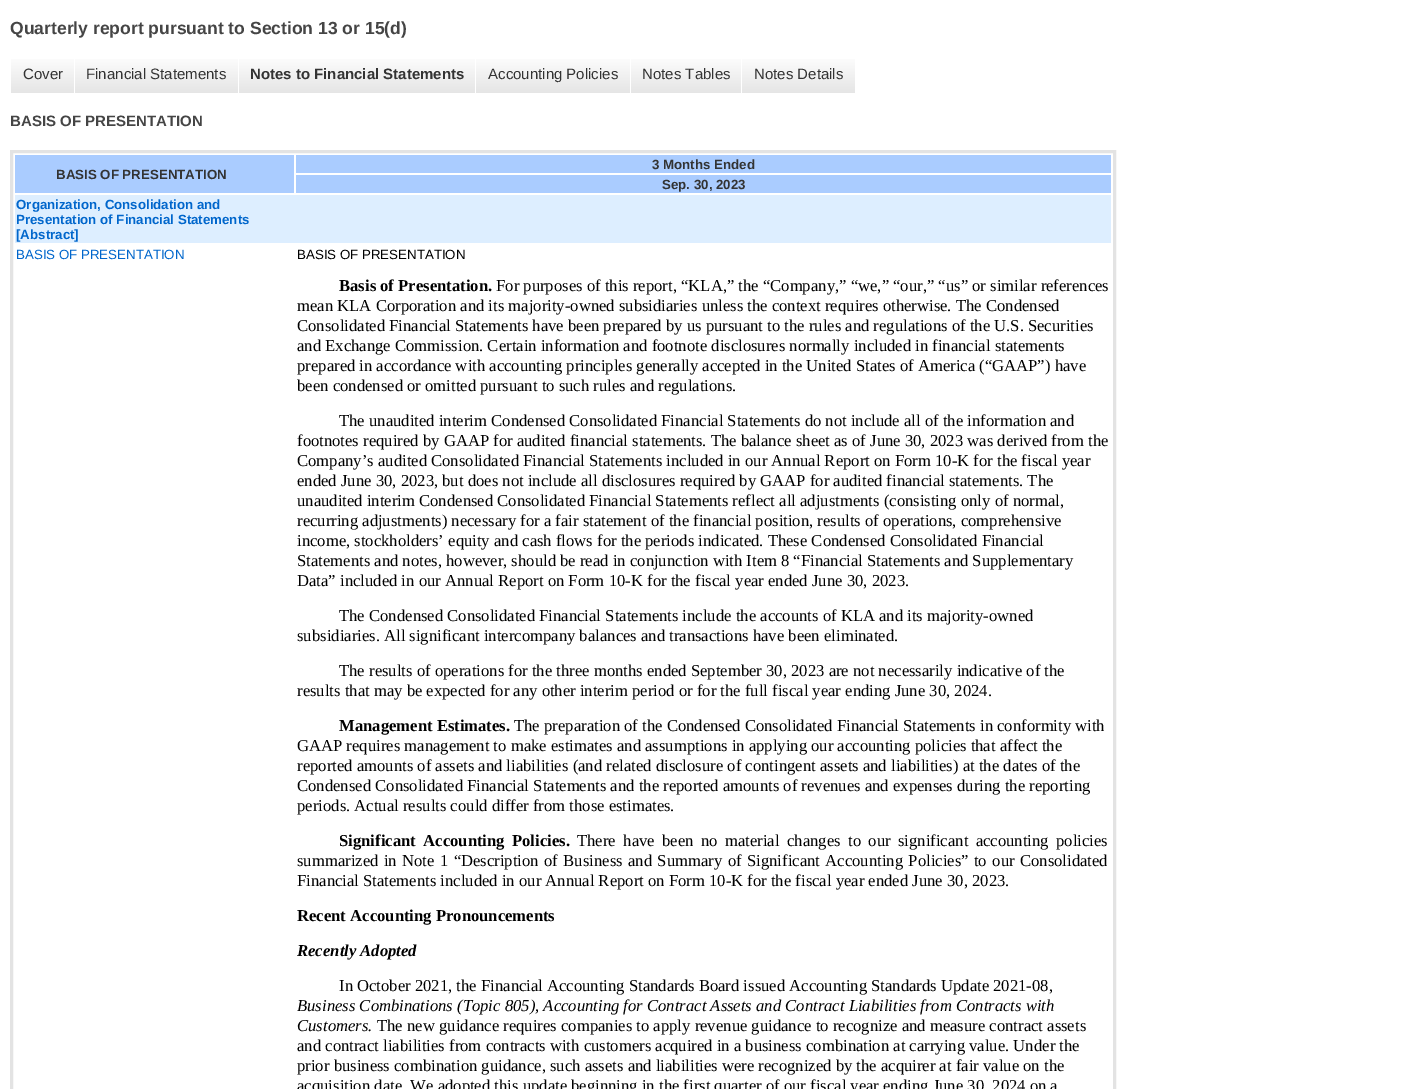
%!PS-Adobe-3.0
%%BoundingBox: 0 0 1402 1089
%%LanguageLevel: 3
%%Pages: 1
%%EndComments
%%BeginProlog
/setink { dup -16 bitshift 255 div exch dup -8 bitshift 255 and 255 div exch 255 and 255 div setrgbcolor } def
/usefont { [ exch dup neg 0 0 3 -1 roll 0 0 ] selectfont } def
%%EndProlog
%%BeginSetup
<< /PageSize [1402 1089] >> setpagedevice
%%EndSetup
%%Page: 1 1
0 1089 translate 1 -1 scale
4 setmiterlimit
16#FFFFFF setink
0 0 1402 1089 rectfill
/LiberationSans-Bold 17.55 usefont
16#454545 setink
10 34 moveto (Quarterly report pursuant to Section 13 or 15\(d\)) show
gsave 11 59 moveto 74 59 lineto 74 93 lineto 11 93 lineto closepath clip newpath
<< /ShadingType 2 /ColorSpace /DeviceRGB /Coords [43 55 43 93] /Extend [true true] /Function << /FunctionType 2 /Domain [0 1] /C0 [1 1 1] /C1 [0.898 0.898 0.898] /N 1 >> >> shfill grestore
/LiberationSans-Regular 15 usefont
16#333333 setink
23 79 moveto (Cover) show
gsave 75 59 moveto 238 59 lineto 238 93 lineto 75 93 lineto closepath clip newpath
<< /ShadingType 2 /ColorSpace /DeviceRGB /Coords [156 55 156 93] /Extend [true true] /Function << /FunctionType 2 /Domain [0 1] /C0 [1 1 1] /C1 [0.898 0.898 0.898] /N 1 >> >> shfill grestore
86 79 moveto (Financial Statements) show
gsave 239 59 moveto 475 59 lineto 475 93 lineto 239 93 lineto closepath clip newpath
<< /ShadingType 2 /ColorSpace /DeviceRGB /Coords [357 55 357 93] /Extend [true true] /Function << /FunctionType 2 /Domain [0 1] /C0 [1 1 1] /C1 [0.898 0.898 0.898] /N 1 >> >> shfill grestore
/LiberationSans-Bold 15 usefont
250 79 moveto (Notes to Financial Statements) show
gsave 476 59 moveto 630 59 lineto 630 93 lineto 476 93 lineto closepath clip newpath
<< /ShadingType 2 /ColorSpace /DeviceRGB /Coords [553 55 553 93] /Extend [true true] /Function << /FunctionType 2 /Domain [0 1] /C0 [1 1 1] /C1 [0.898 0.898 0.898] /N 1 >> >> shfill grestore
/LiberationSans-Regular 15 usefont
488 79 moveto (Accounting Policies) show
gsave 631 59 moveto 741 59 lineto 741 93 lineto 631 93 lineto closepath clip newpath
<< /ShadingType 2 /ColorSpace /DeviceRGB /Coords [686 55 686 93] /Extend [true true] /Function << /FunctionType 2 /Domain [0 1] /C0 [1 1 1] /C1 [0.898 0.898 0.898] /N 1 >> >> shfill grestore
642 79 moveto (Notes Tables) show
gsave 742 59 moveto 855 59 lineto 855 93 lineto 742 93 lineto closepath clip newpath
<< /ShadingType 2 /ColorSpace /DeviceRGB /Coords [799 55 799 93] /Extend [true true] /Function << /FunctionType 2 /Domain [0 1] /C0 [1 1 1] /C1 [0.898 0.898 0.898] /N 1 >> >> shfill grestore
754 79 moveto (Notes Details) show
/LiberationSans-Bold 15 usefont
16#454545 setink
10 126 moveto (BASIS OF PRESENTATION) show
16#E3E3E3 setink
3 setlinewidth
11.5 151.5 1103 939 rectstroke
16#AACCFF setink
296 155 815 18 rectfill
/LiberationSans-Bold 13.3 usefont
16#333333 setink
652 169 moveto (3 Months Ended) show
16#AACCFF setink
15 155 279 38 rectfill
16#333333 setink
56 179 moveto (BASIS OF PRESENTATION) show
16#AACCFF setink
296 175 815 18 rectfill
16#333333 setink
662 189 moveto (Sep. 30, 2023) show
16#DDEEFF setink
15 195 1096 48 rectfill
16#0066CC setink
[
    [(Organization, Consolidation and) 16 209]
    [(Presentation of Financial Statements) 16 224]
    [([Abstract]) 16 239]
] { aload pop moveto show } forall
/LiberationSans-Regular 13.3 usefont
16 259 moveto (BASIS OF PRESENTATION) show
16#000000 setink
297 259 moveto (BASIS OF PRESENTATION) show
/LiberationSerif-Bold 16.65 usefont
339 291 moveto (Basis of Presentation.) show
/LiberationSerif-Regular 16.65 usefont
[
    [(For purposes of this report, “KLA,” the “Company,” “we,” “our,” “us” or similar references) 496 291]
    [(mean KLA Corporation and its majority-owned subsidiaries unless the context requires otherwise. The Condensed) 297 311]
    [(Consolidated Financial Statements have been prepared by us pursuant to the rules and regulations of the U.S. Securities) 297 331]
    [(and Exchange Commission. Certain information and footnote disclosures normally included in financial statements) 297 351]
    [(prepared in accordance with accounting principles generally accepted in the United States of America \(“GAAP”\) have) 297 371]
    [(been condensed or omitted pursuant to such rules and regulations.) 297 391]
    [(The unaudited interim Condensed Consolidated Financial Statements do not include all of the information and) 339 426]
    [(footnotes required by GAAP for audited financial statements. The balance sheet as of June 30, 2023 was derived from the) 297 446]
    [(Company’s audited Consolidated Financial Statements included in our Annual Report on Form 10-K for the fiscal year) 297 466]
    [(ended June 30, 2023, but does not include all disclosures required by GAAP for audited financial statements. The) 297 486]
    [(unaudited interim Condensed Consolidated Financial Statements reflect all adjustments \(consisting only of normal,) 297 506]
    [(recurring adjustments\) necessary for a fair statement of the financial position, results of operations, comprehensive) 297 526]
    [(income, stockholders’ equity and cash flows for the periods indicated. These Condensed Consolidated Financial) 297 546]
    [(Statements and notes, however, should be read in conjunction with Item 8 “Financial Statements and Supplementary) 297 566]
    [(Data” included in our Annual Report on Form 10-K for the fiscal year ended June 30, 2023.) 297 586]
    [(The Condensed Consolidated Financial Statements include the accounts of KLA and its majority-owned) 339 621]
    [(subsidiaries. All significant intercompany balances and transactions have been eliminated.) 297 641]
    [(The results of operations for the three months ended September 30, 2023 are not necessarily indicative of the) 339 676]
    [(results that may be expected for any other interim period or for the full fiscal year ending June 30, 2024.) 297 696]
] { aload pop moveto show } forall
/LiberationSerif-Bold 16.65 usefont
339 731 moveto (Management Estimates.) show
/LiberationSerif-Regular 16.65 usefont
[
    [(The preparation of the Condensed Consolidated Financial Statements in conformity with) 514 731]
    [(GAAP requires management to make estimates and assumptions in applying our accounting policies that affect the) 297 751]
    [(reported amounts of assets and liabilities \(and related disclosure of contingent assets and liabilities\) at the dates of the) 297 771]
    [(Condensed Consolidated Financial Statements and the reported amounts of revenues and expenses during the reporting) 297 791]
    [(periods. Actual results could differ from those estimates.) 297 811]
] { aload pop moveto show } forall
/LiberationSerif-Bold 16.65 usefont
339 846 moveto 3.25 0 32 (Significant Accounting Policies.) widthshow
/LiberationSerif-Regular 16.65 usefont
577 846 moveto 3.25 0 32 (There have been no material changes to our significant accounting policies) widthshow
297 866 moveto 1.25 0 32 (summarized in Note 1 “Description of Business and Summary of Significant Accounting Policies” to our Consolidated) widthshow
297 886 moveto (Financial Statements included in our Annual Report on Form 10-K for the fiscal year ended June 30, 2023.) show
/LiberationSerif-Bold 16.65 usefont
297 921 moveto (Recent Accounting Pronouncements) show
/LiberationSerif-BoldItalic 16.65 usefont
297 956 moveto (Recently Adopted) show
/LiberationSerif-Regular 16.65 usefont
339 991 moveto (In October 2021, the Financial Accounting Standards Board issued Accounting Standards Update 2021-08,) show
/LiberationSerif-Italic 16.65 usefont
297 1011 moveto (Business Combinations \(Topic 805\), Accounting for Contract Assets and Contract Liabilities from Contracts with) show
297 1031 moveto (Customers.) show
/LiberationSerif-Regular 16.65 usefont
[
    [(The new guidance requires companies to apply revenue guidance to recognize and measure contract assets) 377 1031]
    [(and contract liabilities from contracts with customers acquired in a business combination at carrying value. Under the) 297 1051]
    [(prior business combination guidance, such assets and liabilities were recognized by the acquirer at fair value on the) 297 1071]
    [(acquisition date. We adopted this update beginning in the first quarter of our fiscal year ending June 30, 2024 on a) 297 1091]
] { aload pop moveto show } forall
showpage
%%EOF
